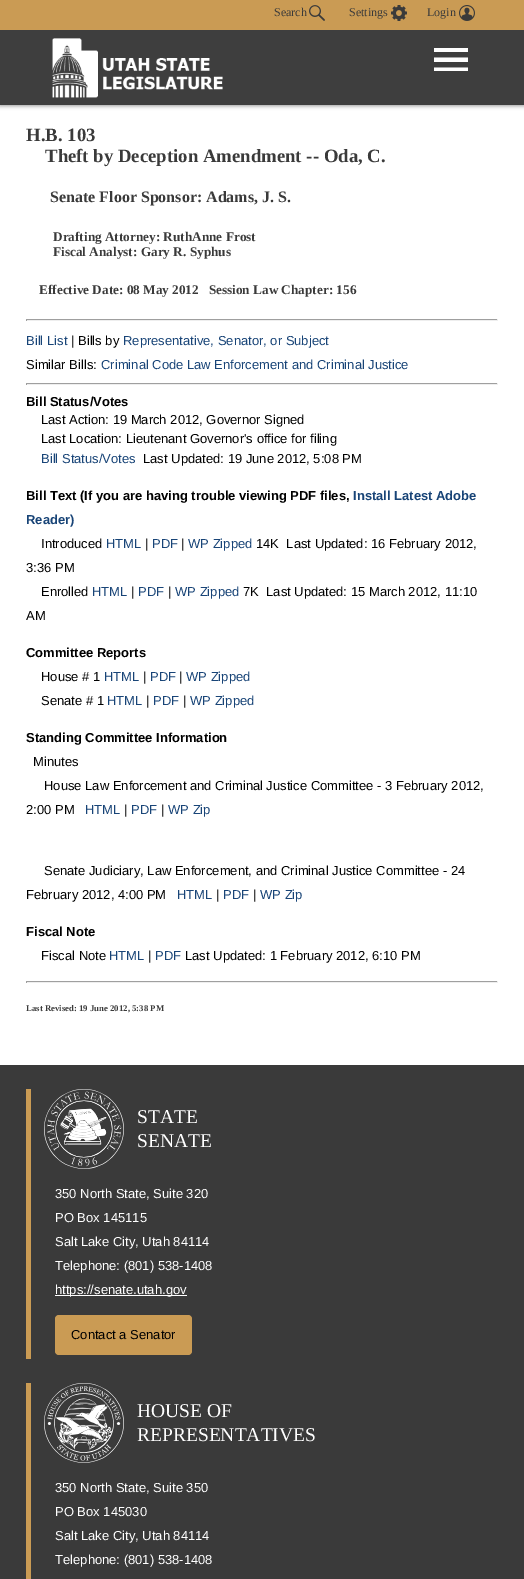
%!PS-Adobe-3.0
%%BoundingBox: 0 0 524 1579
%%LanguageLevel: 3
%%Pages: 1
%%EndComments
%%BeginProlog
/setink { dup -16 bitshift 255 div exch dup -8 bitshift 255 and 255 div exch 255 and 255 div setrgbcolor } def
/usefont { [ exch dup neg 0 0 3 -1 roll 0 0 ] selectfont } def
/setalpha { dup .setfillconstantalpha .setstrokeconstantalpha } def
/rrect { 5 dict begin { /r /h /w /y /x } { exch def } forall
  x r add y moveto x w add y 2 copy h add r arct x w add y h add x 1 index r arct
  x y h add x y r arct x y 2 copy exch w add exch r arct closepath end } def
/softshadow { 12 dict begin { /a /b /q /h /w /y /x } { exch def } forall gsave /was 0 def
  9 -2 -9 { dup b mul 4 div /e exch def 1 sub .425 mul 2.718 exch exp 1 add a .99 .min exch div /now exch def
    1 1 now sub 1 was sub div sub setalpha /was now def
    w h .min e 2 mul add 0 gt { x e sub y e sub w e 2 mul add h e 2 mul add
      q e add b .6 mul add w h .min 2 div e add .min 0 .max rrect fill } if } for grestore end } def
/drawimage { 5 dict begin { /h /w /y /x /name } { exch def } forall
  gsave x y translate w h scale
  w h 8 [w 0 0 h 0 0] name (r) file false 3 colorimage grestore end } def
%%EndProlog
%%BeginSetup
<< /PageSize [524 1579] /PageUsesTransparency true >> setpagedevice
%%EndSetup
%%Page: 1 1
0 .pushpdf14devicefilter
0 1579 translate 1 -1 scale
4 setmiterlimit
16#FFFFFF setink
0 0 524 1579 rectfill
16#000000 setink
0 1 524 105 0 2 0.4 softshadow
16#CA9B54 setink
0 0 524 30 rectfill
/LiberationSerif-Regular 12 usefont
16#3A3A3A setink
274 16 moveto (Search) show
(img1.raw) 309 5 16 16 drawimage
349 16 moveto (Settings) show
(img2.raw) 391 5 16 16 drawimage
427 16 moveto (Login) show
(img3.raw) 459 5 16 16 drawimage
16#3E3E3E setink
0 30 524 75 rectfill
(img4.raw) 52 38 171 60 drawimage
gsave
434 48 34 23 rectclip
16#FFFFFF setink
434 57.5 moveto 468 57.5 lineto 468 62 lineto 434 62 lineto closepath 434 48 moveto 468 48 lineto 468 52 lineto 434 52 lineto closepath 434 67.5 moveto 468 67.5 lineto 468 71.5 lineto 434 71.5 lineto closepath fill
grestore
/LiberationSerif-Bold 18.75 usefont
16#3A3A3A setink
26 141 moveto (H.B. 103) show
45 162 moveto (Theft by Deception Amendment -- Oda, C.) show
/LiberationSerif-Bold 16 usefont
50 202 moveto (Senate Floor Sponsor: Adams, J. S.) show
/LiberationSerif-Bold 13.25 usefont
[
    [(Drafting Attorney: RuthAnne Frost) 53 241]
    [(Fiscal Analyst: Gary R. Syphus) 53 256]
    [(Effective Date: 08 May 2012   Session Law Chapter: 156) 39 294]
] { aload pop moveto show } forall
[
    [26 319 472 1 16#9F9F9F]
    [497 319 1 2 16#EEEEEE]
    [26 320 472 1 16#EEEEEE]
    [26 319 1 2 16#9F9F9F]
] { aload pop setink rectfill } forall
/LiberationSans-Regular 13 usefont
16#184477 setink
26 345 moveto (Bill List) show
16#000000 setink
71 345 moveto (| Bills by) show
16#184477 setink
123 345 moveto (Representative, Senator, or Subject) show
16#000000 setink
26 369 moveto (Similar Bills:) show
16#184477 setink
101 369 moveto (Criminal Code Law Enforcement and Criminal Justice) show
[
    [26 383 472 1 16#9F9F9F]
    [497 383 1 2 16#EEEEEE]
    [26 384 472 1 16#EEEEEE]
    [26 383 1 2 16#9F9F9F]
] { aload pop setink rectfill } forall
/LiberationSans-Bold 13 usefont
16#000000 setink
26 406 moveto (Bill Status/Votes) show
/LiberationSans-Regular 13 usefont
41 424 moveto (Last Action: 19 March 2012, Governor Signed) show
41 443 moveto (Last Location: Lieutenant Governor's office for filing) show
16#184477 setink
41 463 moveto (Bill Status/Votes) show
16#000000 setink
143 463 moveto (Last Updated: 19 June 2012, 5:08 PM) show
/LiberationSans-Bold 13 usefont
26 500 moveto (Bill Text \(If you are having trouble viewing PDF files,) show
16#184477 setink
353 500 moveto (Install Latest Adobe) show
26 524 moveto (Reader\)) show
/LiberationSans-Regular 13 usefont
16#000000 setink
41 548 moveto (Introduced) show
16#184477 setink
106 548 moveto (HTML) show
16#000000 setink
145 548 moveto (|) show
16#184477 setink
152 548 moveto (PDF) show
16#000000 setink
181 548 moveto (|) show
16#184477 setink
188 548 moveto (WP Zipped) show
16#000000 setink
[
    [(14K  Last Updated: 16 February 2012,) 256 548]
    [(3:36 PM) 26 572]
    [(Enrolled) 41 596]
] { aload pop moveto show } forall
16#184477 setink
92 596 moveto (HTML) show
16#000000 setink
131 596 moveto (|) show
16#184477 setink
138 596 moveto (PDF) show
16#000000 setink
168 596 moveto (|) show
16#184477 setink
175 596 moveto (WP Zipped) show
16#000000 setink
243 596 moveto (7K  Last Updated: 15 March 2012, 11:10) show
26 620 moveto (AM) show
/LiberationSans-Bold 13 usefont
26 657 moveto (Committee Reports) show
/LiberationSans-Regular 13 usefont
41 681 moveto (House # 1) show
16#184477 setink
104 681 moveto (HTML) show
16#000000 setink
143 681 moveto (|) show
16#184477 setink
150 681 moveto (PDF) show
16#000000 setink
179 681 moveto (|) show
16#184477 setink
186 681 moveto (WP Zipped) show
16#000000 setink
41 705 moveto (Senate # 1) show
16#184477 setink
107 705 moveto (HTML) show
16#000000 setink
146 705 moveto (|) show
16#184477 setink
153 705 moveto (PDF) show
16#000000 setink
183 705 moveto (|) show
16#184477 setink
190 705 moveto (WP Zipped) show
/LiberationSans-Bold 13 usefont
16#000000 setink
26 742 moveto (Standing Committee Information) show
/LiberationSans-Regular 13 usefont
[
    [(Minutes) 33 766]
    [(House Law Enforcement and Criminal Justice Committee - 3 February 2012,) 44 790]
    [(2:00 PM) 26 814]
] { aload pop moveto show } forall
16#184477 setink
85 814 moveto (HTML) show
16#000000 setink
124 814 moveto (|) show
16#184477 setink
131 814 moveto (PDF) show
16#000000 setink
161 814 moveto (|) show
16#184477 setink
168 814 moveto (WP Zip) show
16#000000 setink
44 875 moveto (Senate Judiciary, Law Enforcement, and Criminal Justice Committee - 24) show
26 899 moveto (February 2012, 4:00 PM) show
16#184477 setink
177 899 moveto (HTML) show
16#000000 setink
216 899 moveto (|) show
16#184477 setink
223 899 moveto (PDF) show
16#000000 setink
253 899 moveto (|) show
16#184477 setink
260 899 moveto (WP Zip) show
/LiberationSans-Bold 13 usefont
16#000000 setink
26 936 moveto (Fiscal Note) show
/LiberationSans-Regular 13 usefont
41 960 moveto (Fiscal Note) show
16#184477 setink
109 960 moveto (HTML) show
16#000000 setink
148 960 moveto (|) show
16#184477 setink
155 960 moveto (PDF) show
16#000000 setink
185 960 moveto (Last Updated: 1 February 2012, 6:10 PM) show
[
    [26 981 472 1 16#9F9F9F]
    [497 981 1 2 16#EEEEEE]
    [26 982 472 1 16#EEEEEE]
    [26 981 1 2 16#9F9F9F]
] { aload pop setink rectfill } forall
/LiberationSerif-Bold 8.75 usefont
16#3A3A3A setink
26 1011 moveto (Last Revised: 19 June 2012, 5:38 PM) show
0 1065 524 514 rectfill
16#CA9B54 setink
26 1089 5 270 rectfill
(img5.raw) 44 1089 80 80 drawimage
/LiberationSerif-Regular 19.5 usefont
16#FFFFFF setink
137 1123 moveto (STATE) show
137 1147 moveto (SENATE) show
/LiberationSans-Regular 13 usefont
[
    [(350 North State, Suite 320) 55 1198]
    [(PO Box 145115) 55 1222]
    [(Salt Lake City, Utah 84114) 55 1246]
    [(Telephone: \(801\) 538-1408) 55 1270]
] { aload pop moveto show } forall
55 1295 132 1 rectfill
55 1294 moveto (https://senate.utah.gov) show
16#CA9B54 setink
55 1315 137 40 4 rrect fill
16#000000 setink
71 1339 moveto (Contact a Senator) show
16#CA9B54 setink
26 1383 5 196 rectfill
(img6.raw) 44 1383 80 80 drawimage
/LiberationSerif-Regular 19.5 usefont
16#FFFFFF setink
137 1417 moveto (HOUSE OF) show
137 1441 moveto (REPRESENTATIVES) show
/LiberationSans-Regular 13 usefont
[
    [(350 North State, Suite 350) 55 1492]
    [(PO Box 145030) 55 1516]
    [(Salt Lake City, Utah 84114) 55 1540]
    [(Telephone: \(801\) 538-1408) 55 1564]
] { aload pop moveto show } forall
.poppdf14devicefilter showpage
%%EOF
